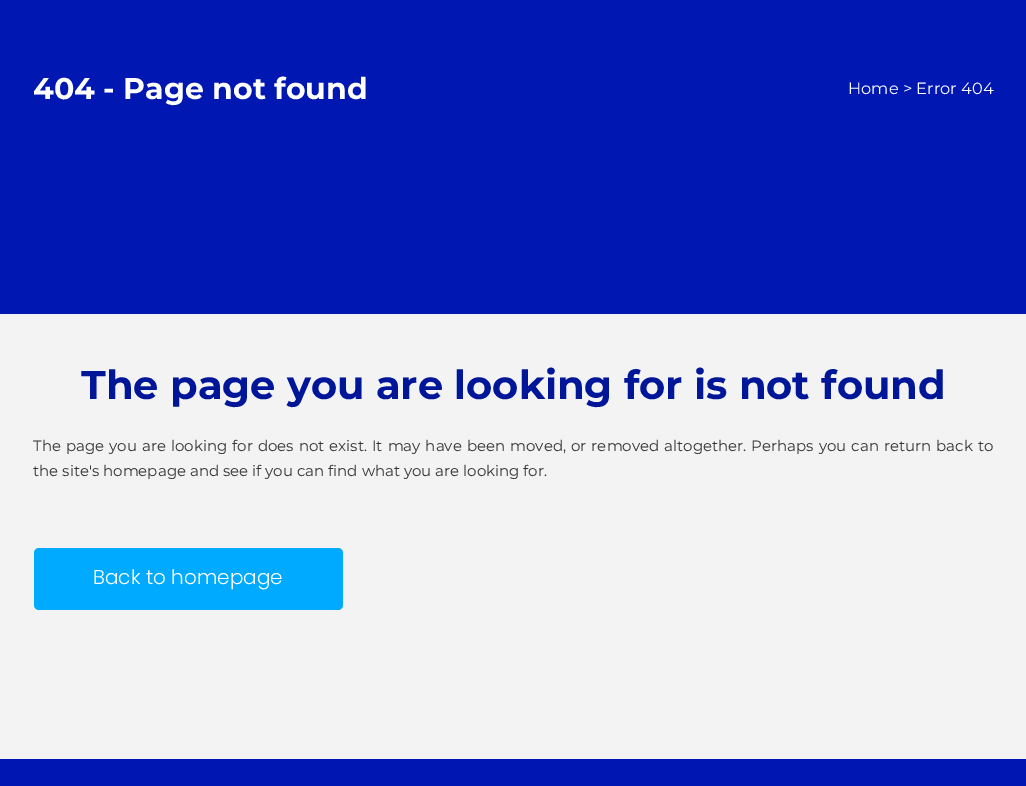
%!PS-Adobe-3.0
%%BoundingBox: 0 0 1026 786
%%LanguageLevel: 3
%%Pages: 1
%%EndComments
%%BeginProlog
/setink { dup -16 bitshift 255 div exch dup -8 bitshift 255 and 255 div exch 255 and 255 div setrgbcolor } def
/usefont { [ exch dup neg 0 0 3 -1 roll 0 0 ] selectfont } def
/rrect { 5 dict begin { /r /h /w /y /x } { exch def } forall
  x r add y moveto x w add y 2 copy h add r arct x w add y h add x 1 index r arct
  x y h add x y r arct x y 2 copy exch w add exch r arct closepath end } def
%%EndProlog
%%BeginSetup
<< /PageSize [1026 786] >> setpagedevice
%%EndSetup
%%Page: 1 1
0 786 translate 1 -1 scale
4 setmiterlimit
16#F3F3F3 setink
0 0 1026 786 rectfill
16#0017B2 setink
0 0 1026 314 rectfill
/Montserrat-Bold 30 usefont
16#FFFFFF setink
33 99 moveto (404 - Page not found) show
/Montserrat-Regular 16.25 usefont
848 94 moveto (Home > Error 404) show
/Montserrat-Bold 40 usefont
16#001698 setink
81 399 moveto (The page you are looking for is not found) show
/Montserrat-Regular 15 usefont
16#333333 setink
33 451 moveto 1.1 0 32 (The page you are looking for does not exist. It may have been moved, or removed altogether. Perhaps you can return back to) widthshow
33 476 moveto (the site's homepage and see if you can find what you are looking for.) show
16#00AAFF setink
34 548 309 62 5 rrect fill
/Poppins-Light 20 usefont
16#FFFFFF setink
93 584 moveto (Back to homepage) show
16#0016B2 setink
0 759 1026 27 rectfill
showpage
%%EOF
